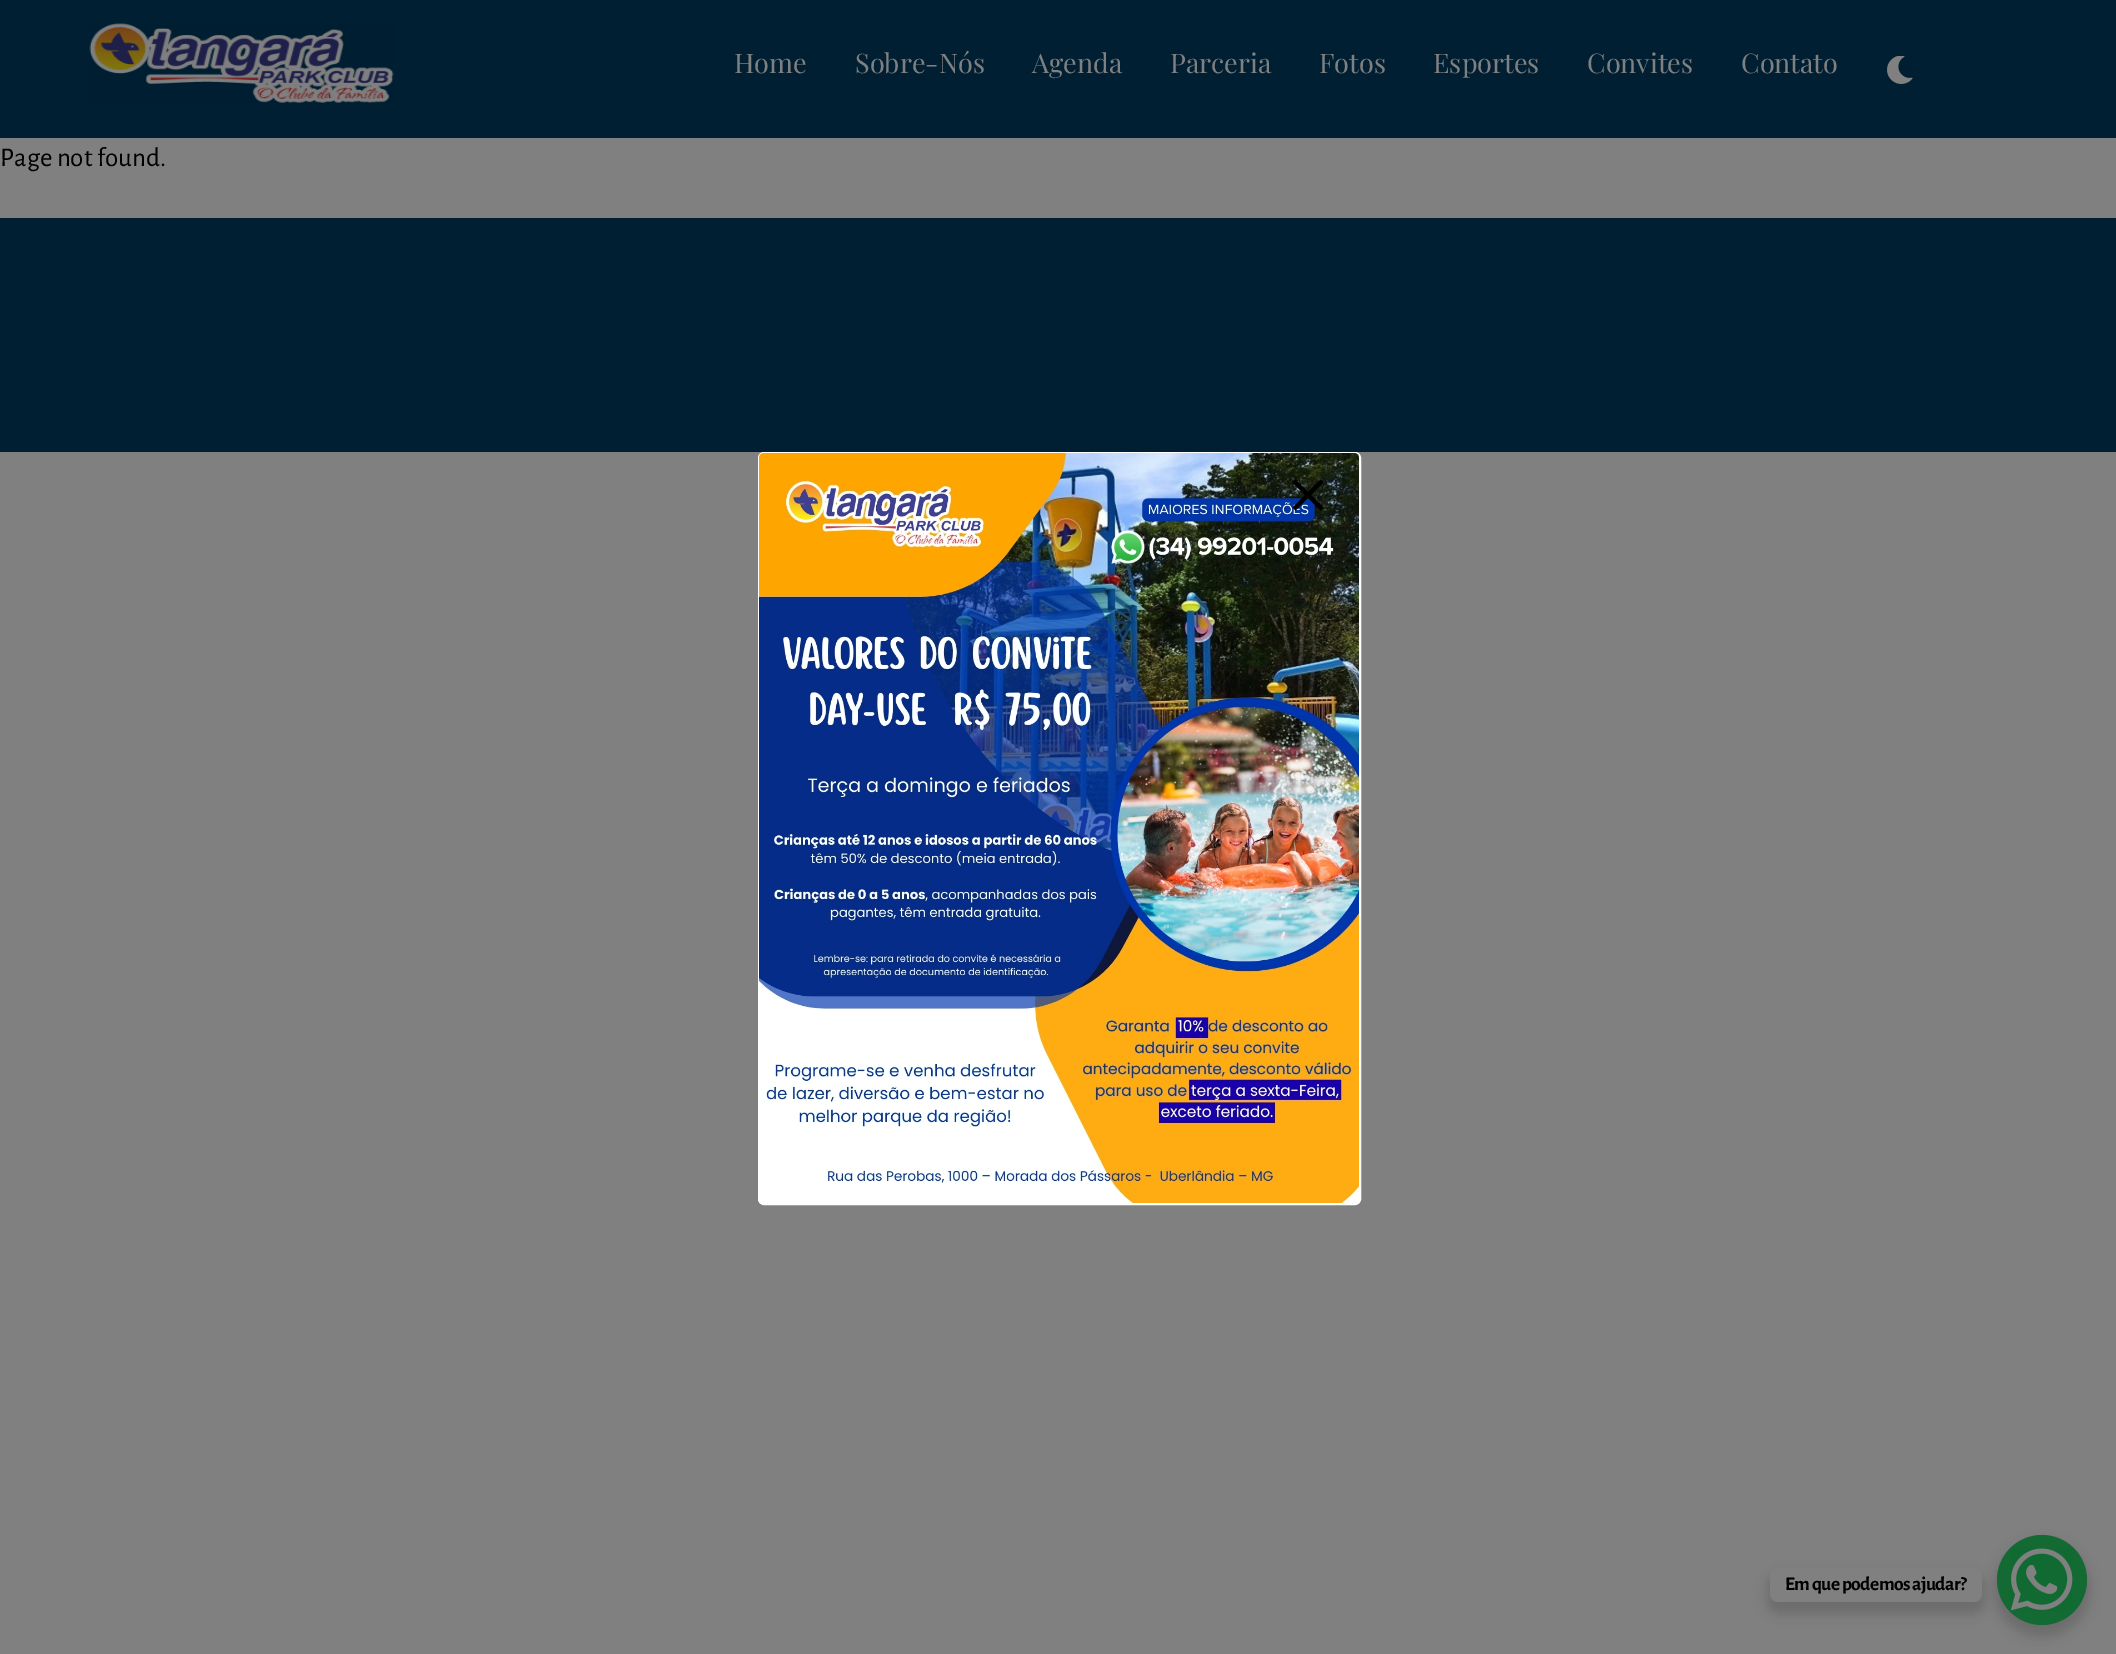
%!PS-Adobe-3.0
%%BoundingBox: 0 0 2116 1654
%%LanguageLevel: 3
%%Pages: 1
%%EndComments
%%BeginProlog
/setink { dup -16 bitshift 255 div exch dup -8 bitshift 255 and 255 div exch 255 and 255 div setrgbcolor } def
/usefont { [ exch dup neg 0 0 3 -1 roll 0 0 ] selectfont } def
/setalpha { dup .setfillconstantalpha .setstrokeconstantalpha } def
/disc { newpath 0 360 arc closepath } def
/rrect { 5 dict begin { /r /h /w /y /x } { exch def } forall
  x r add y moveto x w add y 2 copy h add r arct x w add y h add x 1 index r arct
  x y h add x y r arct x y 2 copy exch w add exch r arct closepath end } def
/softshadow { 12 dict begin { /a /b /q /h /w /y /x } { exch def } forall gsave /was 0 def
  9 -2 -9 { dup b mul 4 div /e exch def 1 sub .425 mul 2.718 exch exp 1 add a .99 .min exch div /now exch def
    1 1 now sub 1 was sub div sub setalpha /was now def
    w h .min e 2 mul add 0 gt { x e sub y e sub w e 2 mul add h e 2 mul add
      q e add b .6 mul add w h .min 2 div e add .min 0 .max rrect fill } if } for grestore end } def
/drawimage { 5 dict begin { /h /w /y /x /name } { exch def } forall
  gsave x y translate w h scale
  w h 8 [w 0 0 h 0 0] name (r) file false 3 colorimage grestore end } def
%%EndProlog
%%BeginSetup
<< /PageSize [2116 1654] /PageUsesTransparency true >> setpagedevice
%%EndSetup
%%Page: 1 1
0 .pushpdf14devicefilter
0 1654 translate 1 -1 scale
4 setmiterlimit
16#808080 setink
0 0 2116 1654 rectfill
16#001F32 setink
0 0 2116 138 rectfill
(img1.raw) 89 23 305 80 drawimage
/PlayfairDisplay-Regular 27 usefont
16#808080 setink
[
    [(Home) 734 73]
    [(Sobre-Nós) 855 73]
    [(Agenda) 1032 73]
    [(Parceria) 1170 73]
    [(Fotos) 1319 73]
    [(Esportes) 1433 73]
    [(Convites) 1587 73]
    [(Contato) 1741 73]
] { aload pop moveto show } forall
(img2.raw) 1887 56 26 28 drawimage
/AlegreyaSans-Regular 27 usefont
16#000000 setink
0 166 moveto (Page not found.) show
16#001F32 setink
0 218 2116 234 rectfill
16#FFFFFF setink
759 453 601 751 5 rrect gsave fill grestore
2 setlinewidth
stroke
(img3.raw) 759 453 600 750 drawimage
(img4.raw) 1292 479 32 32 drawimage
16#000000 setink
1994 1541 96 96 48 6 0.15 softshadow
16#136A33 setink
2042 1580 45 disc fill
16#000000 setink
1767 1574 218 40 11 6 0.15 softshadow
16#808080 setink
1770 1568 212 34 8 rrect fill
/AlegreyaSans-Bold 19.5 usefont
16#000000 setink
1785 1590 moveto -0.6 0 (Em que podemos ajudar?) ashow
(img5.raw) 2010 1548 63 63 drawimage
.poppdf14devicefilter showpage
%%EOF
